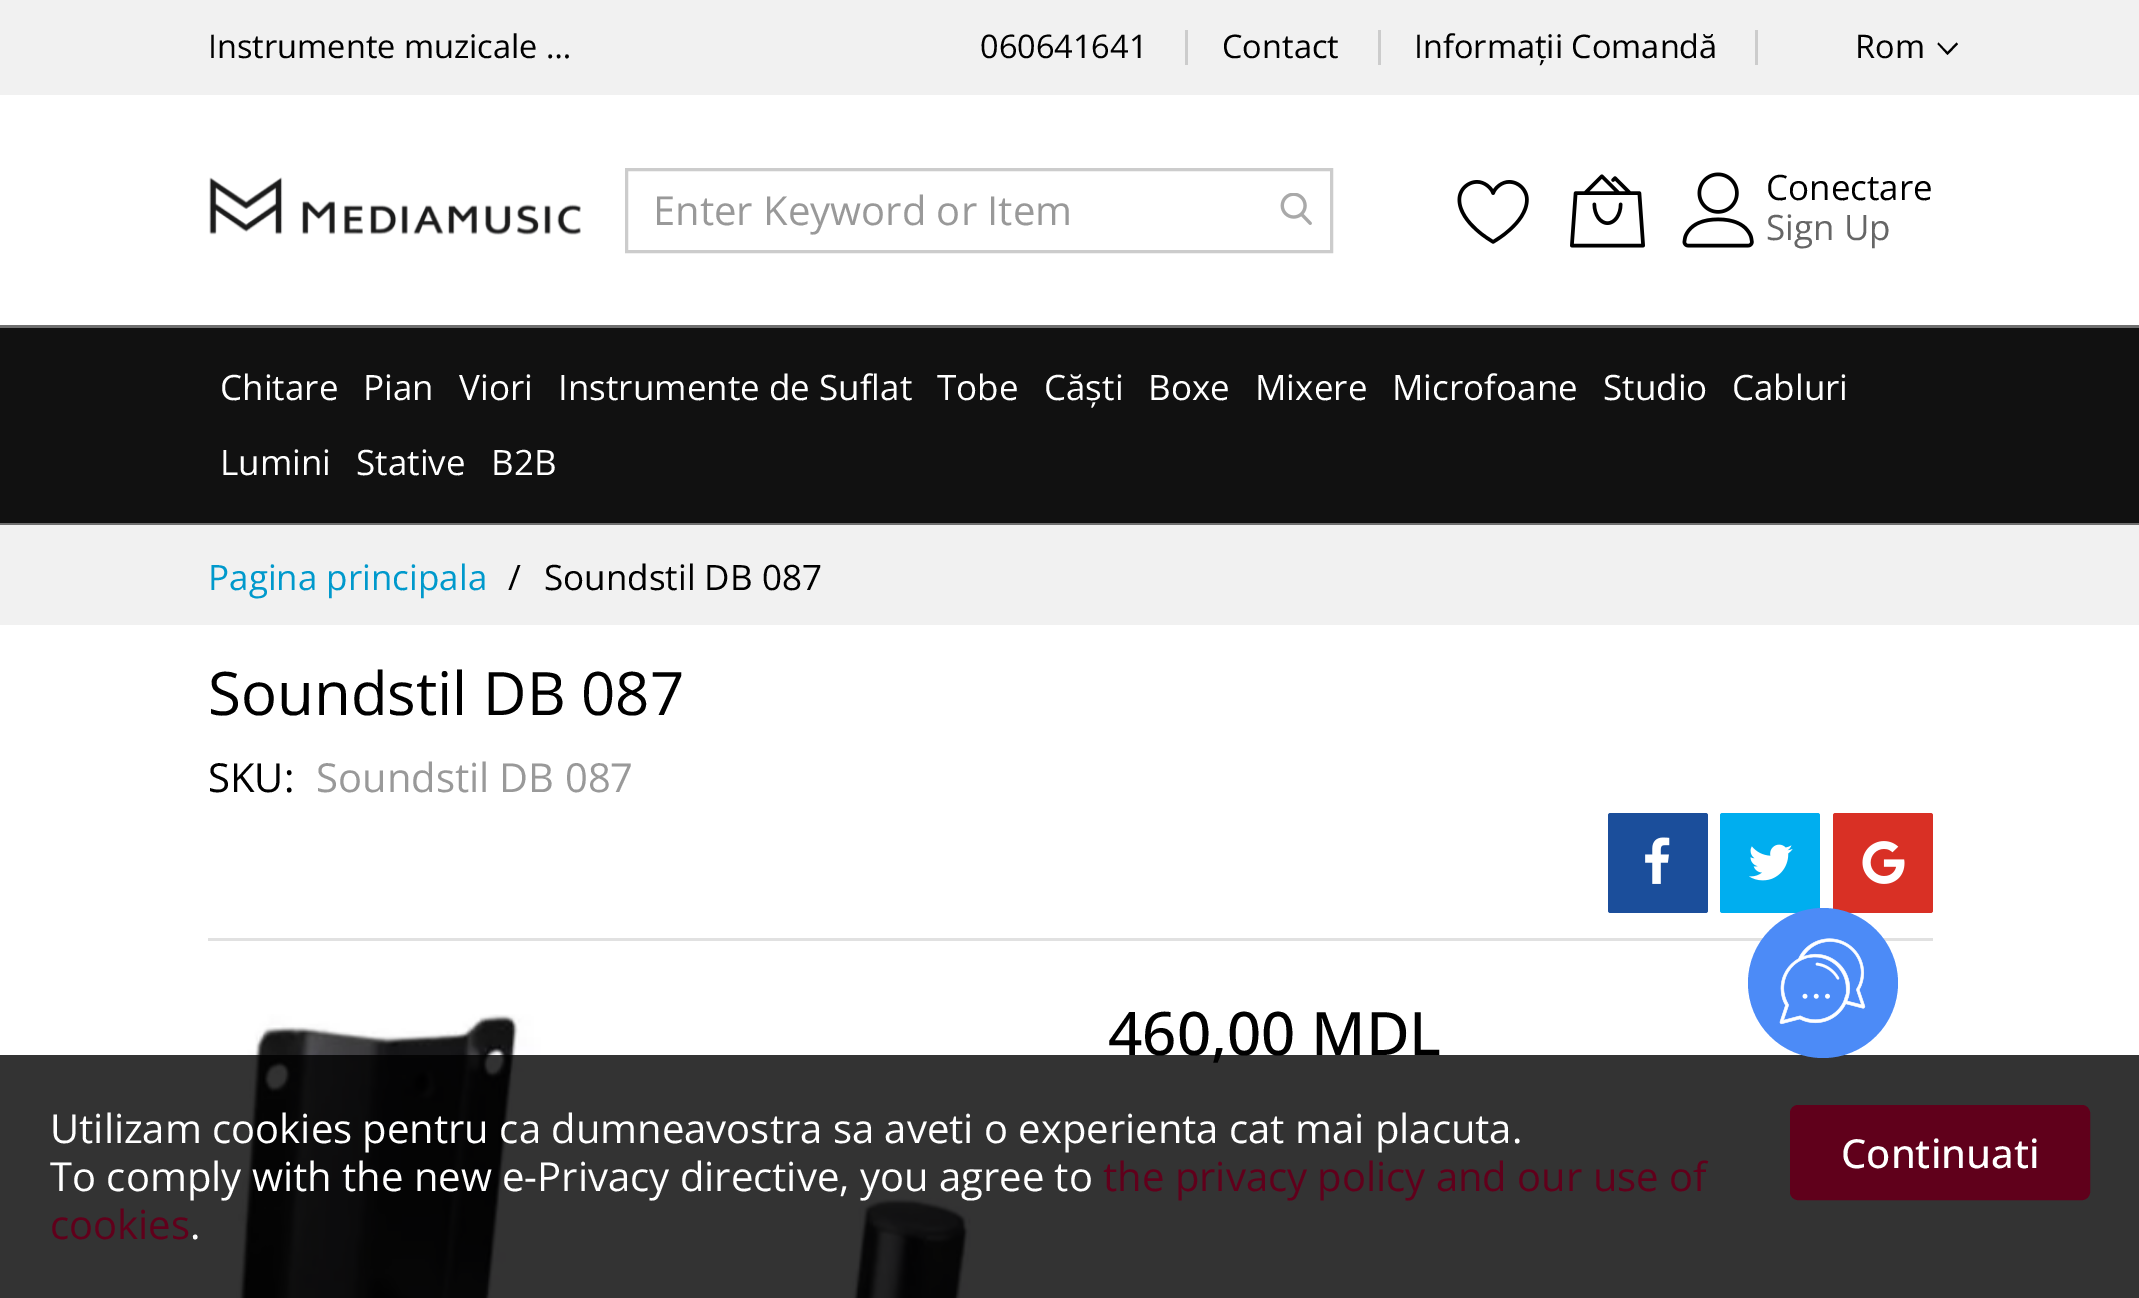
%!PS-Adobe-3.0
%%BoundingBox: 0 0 2139 1298
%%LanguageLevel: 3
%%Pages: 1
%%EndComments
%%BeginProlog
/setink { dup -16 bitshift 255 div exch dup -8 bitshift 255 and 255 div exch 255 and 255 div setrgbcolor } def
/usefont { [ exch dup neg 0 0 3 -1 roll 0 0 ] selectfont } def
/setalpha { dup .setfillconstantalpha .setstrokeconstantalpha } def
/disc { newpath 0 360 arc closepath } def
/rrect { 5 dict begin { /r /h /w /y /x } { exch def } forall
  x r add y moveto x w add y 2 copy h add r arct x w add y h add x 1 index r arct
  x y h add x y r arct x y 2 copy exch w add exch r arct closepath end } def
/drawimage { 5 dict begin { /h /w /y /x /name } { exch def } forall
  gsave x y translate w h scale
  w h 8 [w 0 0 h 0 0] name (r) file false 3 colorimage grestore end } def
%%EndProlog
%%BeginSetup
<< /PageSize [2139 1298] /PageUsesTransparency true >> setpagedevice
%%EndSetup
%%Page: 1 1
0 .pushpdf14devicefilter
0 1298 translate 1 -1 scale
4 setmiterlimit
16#FFFFFF setink
0 0 2139 1298 rectfill
16#F1F1F1 setink
0 0 2139 95 rectfill
/OpenSans-Regular 32.5 usefont
16#000000 setink
208 58 moveto (Instrumente muzicale …) show
980 58 moveto (060641641) show
16#CCCCCC setink
1185 30 3 35 rectfill
16#000000 setink
1222 58 moveto (Contact) show
16#CCCCCC setink
1378 30 3 35 rectfill
16#000000 setink
1414 58 moveto (Informații Comandă) show
16#CCCCCC setink
1755 30 3 35 rectfill
16#000000 setink
1855 58 moveto (Rom) show
1956.5 42.5 moveto 1958 44 lineto 1947.5 55 lineto 1937.5 44 lineto 1938.5 42.5 lineto 1947.5 52 lineto closepath fill
(img1.raw) 209 177 372 58 drawimage
16#CCCCCC setink
3 setlinewidth
626.5 169.5 705 82 rectstroke
/OpenSans-Regular 40 usefont
16#999999 setink
653 225 moveto (Enter Keyword or Item) show
(img2.raw) 1280 193 32 32 drawimage
(img3.raw) 1457 180 72 64 drawimage
(img4.raw) 1570 174 75 74 drawimage
(img5.raw) 1682 172 72 76 drawimage
/OpenSans-Regular 35 usefont
16#000000 setink
1766 200 moveto (Conectare) show
16#666666 setink
1766 240 moveto (Sign Up) show
[
    [0 328 2139 195 16#111111]
    [0 523 2139 2 16#6F6F6F]
    [0 325 2139 3 16#6F6F6F]
] { aload pop setink rectfill } forall
16#FFFFFF setink
[
    [(Chitare) 220 400]
    [(Pian) 363 400]
    [(Viori) 459 400]
    [(Instrumente de Suflat) 558 400]
    [(Tobe) 937 400]
    [(Căști) 1044 400]
    [(Boxe) 1148 400]
    [(Mixere) 1255 400]
    [(Microfoane) 1392 400]
    [(Studio) 1603 400]
    [(Cabluri) 1732 400]
    [(Lumini) 220 475]
    [(Stative) 356 475]
    [(B2B) 491 475]
] { aload pop moveto show } forall
16#F1F1F1 setink
0 525 2139 100 rectfill
16#0099CC setink
208 590 moveto (Pagina principala) show
16#000000 setink
508 590 moveto (/) show
544 590 moveto (Soundstil DB 087) show
16#E1E1E1 setink
208 938 1725 3 rectfill
/OpenSans-Regular 60 usefont
16#000000 setink
208 715 moveto (Soundstil DB 087) show
/OpenSans-Regular 40 usefont
208 792 moveto (SKU:) show
16#999999 setink
316 792 moveto (Soundstil DB 087) show
16#1B4E9B setink
1608 813 100 100 2.5 rrect fill
(img6.raw) 1645 837 25 47 drawimage
16#00AEEF setink
1720 813 100 100 2.5 rrect fill
(img7.raw) 1749 844 44 37 drawimage
16#D93025 setink
1833 813 100 100 2.5 rrect fill
(img8.raw) 1862 841 43 43 drawimage
(img9.raw) 236 1014 735 284 drawimage
/OpenSans-Medium 60 usefont
16#000000 setink
1108 1055 moveto (460,00 MDL) show
0.8 setalpha
0 1055 2139 243 rectfill
/OpenSans-Regular 40 usefont
1 setalpha
16#FFFFFF setink
50 1143 moveto (Utilizam cookies pentru ca dumneavostra sa aveti o experienta cat mai placuta.) show
50 1191 moveto (To comply with the new e-Privacy directive, you agree to) show
16#60001B setink
1103 1191 moveto (the privacy policy and our use of) show
50 1239 moveto (cookies) show
16#FFFFFF setink
190 1239 moveto (.) show
16#60001B setink
1791.5 1106.5 297 92 6.5 rrect gsave fill grestore
stroke
/OpenSans-Medium 40 usefont
16#FFFFFF setink
1841 1168 moveto (Continuati) show
16#4C8BF7 setink
1823 983 75 disc fill
(img10.raw) 1779 938 87 87 drawimage
.poppdf14devicefilter showpage
%%EOF
